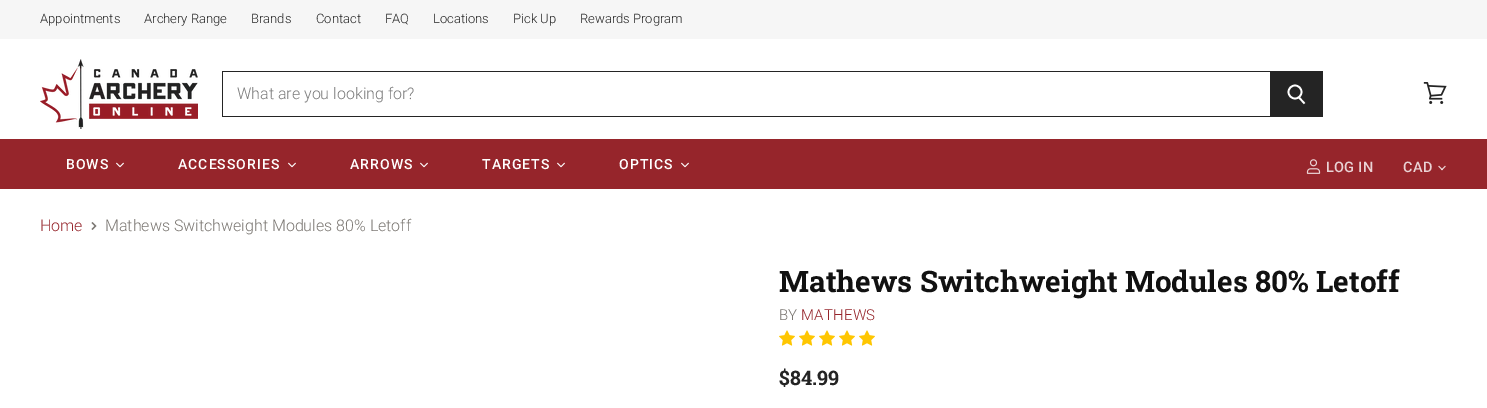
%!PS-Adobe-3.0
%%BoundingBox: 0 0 1487 408
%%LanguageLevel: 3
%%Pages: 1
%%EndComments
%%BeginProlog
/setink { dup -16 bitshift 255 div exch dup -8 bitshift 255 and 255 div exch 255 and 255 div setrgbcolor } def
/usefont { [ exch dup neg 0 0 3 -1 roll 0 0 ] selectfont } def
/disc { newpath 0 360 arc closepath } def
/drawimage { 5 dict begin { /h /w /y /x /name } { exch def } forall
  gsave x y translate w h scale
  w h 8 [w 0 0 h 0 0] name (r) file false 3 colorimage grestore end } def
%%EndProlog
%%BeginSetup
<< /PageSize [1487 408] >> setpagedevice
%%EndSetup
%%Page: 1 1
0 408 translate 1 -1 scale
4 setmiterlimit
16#FFFFFF setink
0 0 1487 408 rectfill
16#F6F6F6 setink
0 0 1487 39 rectfill
/Roboto-Light 13 usefont
16#242424 setink
[
    [(Appointments) 40 23]
    [(Archery Range) 144 23]
    [(Brands) 251 23]
    [(Contact) 316 23]
    [(FAQ) 385 23]
    [(Locations) 433 23]
    [(Pick Up) 513 23]
    [(Rewards Program) 580 23]
] { aload pop moveto show } forall
(img1.raw) 40 59 158 70 drawimage
[
    [1270 72 52 44 16#242424]
    [222 71 1101 1 16#242424]
    [1322 71 1 46 16#242424]
    [222 116 1101 1 16#242424]
] { aload pop setink rectfill } forall
16#FFFFFF setink
1.7 setlinewidth
1304.5 103.5 moveto 1299 97.5 lineto stroke
1295 92 6.5 disc stroke
16#242424 setink
222 71 1 46 rectfill
/Roboto-Light 16 usefont
16#7C7C7C setink
237 99 moveto (What are you looking for?) show
(img2.raw) 1423 82 24 22 drawimage
16#96252B setink
0 139 1487 50 rectfill
/Roboto-Medium 14 usefont
16#FFFFFF setink
66 169 moveto 1 0 (BOWS) ashow
(img3.raw) 116 162 8 6 drawimage
178 169 moveto 1 0 (ACCESSORIES) ashow
(img3.raw) 288 162 8 6 drawimage
350 169 moveto 1 0 (ARROWS) ashow
(img3.raw) 420 162 8 6 drawimage
482 169 moveto 1 0 (TARGETS) ashow
(img3.raw) 557 162 8 6 drawimage
619 169 moveto 1 0 (OPTICS) ashow
(img3.raw) 681 162 8 6 drawimage
(img4.raw) 1306 159 15 15 drawimage
/Roboto-Medium 14.5 usefont
16#EAD3D5 setink
1326 172 moveto 0.25 0 (LOG IN) ashow
1403 172 moveto 0.25 0 (CAD) ashow
(img5.raw) 1438 165 8 6 drawimage
/Roboto-Light 16 usefont
16#96252B setink
40 231 moveto (Home) show
16#7C7873 setink
1.2 setlinewidth
92 229.5 moveto 95.5 226 lineto 92 222.5 lineto stroke
105 231 moveto (Mathews Switchweight Modules 80% Letoff) show
/RobotoSlab-Bold 29.7 usefont
16#111111 setink
779 292 moveto (Mathews Switchweight Modules 80% Letoff) show
/Roboto-Light 15 usefont
16#7C7873 setink
779 320 moveto 0.25 0 (BY) ashow
16#96252B setink
801 320 moveto 0.25 0 (MATHEWS) ashow
(img6.raw) 779 330 16 16 drawimage
(img6.raw) 799 330 16 16 drawimage
(img6.raw) 819 330 16 16 drawimage
(img6.raw) 839 330 16 16 drawimage
(img6.raw) 859 330 16 16 drawimage
/RobotoSlab-Bold 20 usefont
16#242424 setink
779 385 moveto ($84.99) show
showpage
%%EOF
